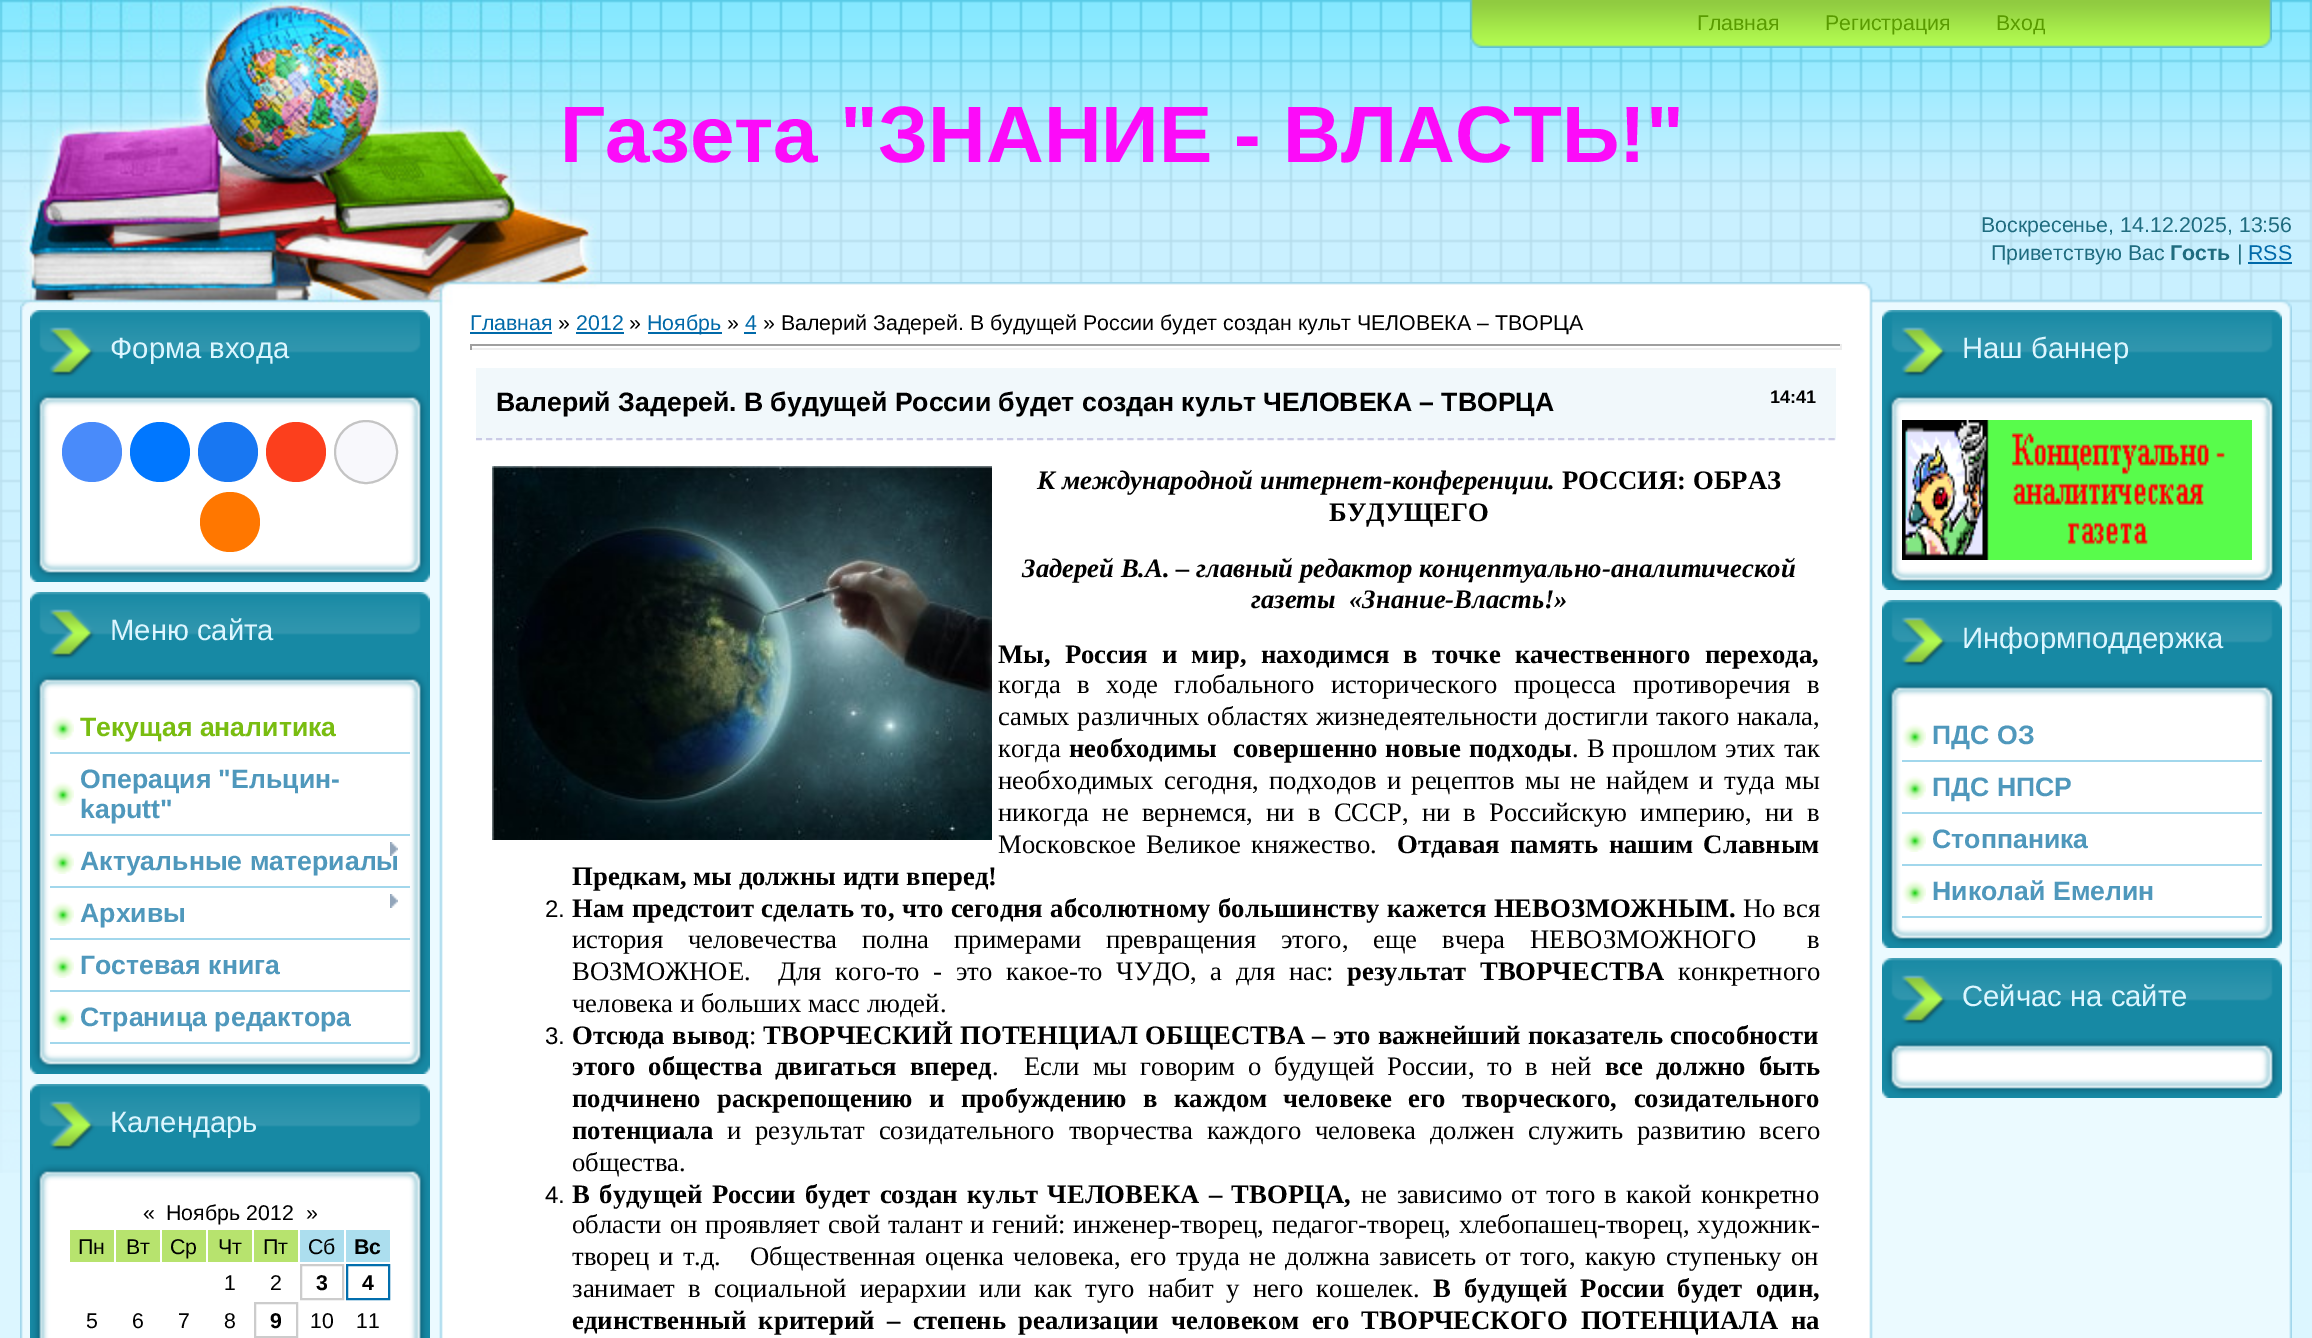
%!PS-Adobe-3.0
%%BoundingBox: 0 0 2312 1338
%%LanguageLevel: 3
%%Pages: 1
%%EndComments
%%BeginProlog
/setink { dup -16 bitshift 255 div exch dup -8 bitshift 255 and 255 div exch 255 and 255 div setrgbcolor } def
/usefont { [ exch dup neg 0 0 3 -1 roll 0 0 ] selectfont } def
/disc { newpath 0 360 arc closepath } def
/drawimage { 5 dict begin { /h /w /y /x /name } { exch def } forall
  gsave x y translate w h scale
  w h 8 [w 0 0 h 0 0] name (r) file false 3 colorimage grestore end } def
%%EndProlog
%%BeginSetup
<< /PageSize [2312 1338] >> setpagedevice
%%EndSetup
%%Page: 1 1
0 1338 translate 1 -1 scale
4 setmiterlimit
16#DCF6FF setink
0 0 2312 1338 rectfill
(img1.raw) 0 0 2312 1173 drawimage
(img2.raw) 600 282 1692 28 drawimage
(img3.raw) 20 0 580 310 drawimage
(img4.raw) 1470 0 802 48 drawimage
/LiberationSans-Regular 21.35 usefont
16#599B00 setink
[
    [(Главная) 1697 30]
    [(Регистрация) 1825 30]
    [(Вход) 1996 30]
] { aload pop moveto show } forall
/LiberationSans-Bold 80 usefont
16#FC0BF9 setink
560 162 moveto (Газета "ЗНАНИЕ - ВЛАСТЬ!") show
/LiberationSans-Regular 21.35 usefont
16#1F6C7F setink
1981 232 moveto (Воскресенье, 14.12.2025, 13:56) show
1991 260 moveto (Приветствую Вас) show
/LiberationSans-Bold 21.35 usefont
2170 260 moveto (Гость) show
/LiberationSans-Regular 21.35 usefont
2237 260 moveto (|) show
16#0069A9 setink
2248 260 moveto (RSS) show
2248 262 44 2 rectfill
(img5.raw) 20 310 430 1028 drawimage
(img6.raw) 30 390 400 192 drawimage
16#1789A4 setink
30 377 400 13 rectfill
(img7.raw) 30 310 400 67 drawimage
/LiberationSans-Regular 29.25 usefont
16#DCF6FF setink
110 358 moveto (Форма входа) show
(img8.raw) 33 390 394 26 drawimage
16#498BFA setink
92 452 30 disc fill
16#0077FF setink
160 452 30 disc fill
16#1877F2 setink
228 452 30 disc fill
16#FC3F1D setink
296 452 30 disc fill
16#F8F8FC setink
366 452 31 disc gsave fill grestore
16#C4C4C4 setink
2 setlinewidth
stroke
16#FF7700 setink
230 522 30 disc fill
(img9.raw) 30 672 400 402 drawimage
16#1789A4 setink
30 659 400 13 rectfill
(img7.raw) 30 592 400 67 drawimage
16#DCF6FF setink
110 640 moveto (Меню сайта) show
(img8.raw) 33 672 394 26 drawimage
(img10.raw) 50 716 24 24 drawimage
16#A2D7EC setink
50 752 360 2 rectfill
/LiberationSans-Bold 26.65 usefont
16#79BD11 setink
80 736 moveto (Текущая аналитика) show
(img10.raw) 50 782 24 24 drawimage
16#A2D7EC setink
50 834 360 2 rectfill
16#4F98BC setink
80 788 moveto (Операция "Ельцин-) show
80 818 moveto (kaputt") show
(img10.raw) 50 850 24 24 drawimage
16#A2D7EC setink
50 886 360 2 rectfill
16#4F98BC setink
80 870 moveto (Актуальные материалы) show
(img11.raw) 390 842 8 14 drawimage
(img10.raw) 50 902 24 24 drawimage
16#A2D7EC setink
50 938 360 2 rectfill
(img12.raw) 390 894 8 14 drawimage
16#4F98BC setink
80 922 moveto (Архивы) show
(img10.raw) 50 954 24 24 drawimage
16#A2D7EC setink
50 990 360 2 rectfill
16#4F98BC setink
80 974 moveto (Гостевая книга) show
(img10.raw) 50 1006 24 24 drawimage
16#A2D7EC setink
50 1042 360 2 rectfill
16#4F98BC setink
80 1026 moveto (Страница редактора) show
(img13.raw) 30 1164 400 174 drawimage
16#1789A4 setink
30 1151 400 13 rectfill
(img7.raw) 30 1084 400 67 drawimage
/LiberationSans-Regular 29.25 usefont
16#DCF6FF setink
110 1132 moveto (Календарь) show
(img8.raw) 33 1164 394 26 drawimage
/LiberationSans-Regular 21.35 usefont
16#000000 setink
[
    [(«) 143 1220]
    [(Ноябрь 2012) 166 1220]
    [(») 306 1220]
] { aload pop moveto show } forall
16#B7E36E setink
70 1230 44 32 rectfill
16#000000 setink
78 1254 moveto (Пн) show
16#B7E36E setink
116 1230 44 32 rectfill
16#000000 setink
126 1254 moveto (Вт) show
16#B7E36E setink
162 1230 44 32 rectfill
16#000000 setink
170 1254 moveto (Ср) show
16#B7E36E setink
208 1230 44 32 rectfill
16#000000 setink
218 1254 moveto (Чт) show
16#B7E36E setink
254 1230 44 32 rectfill
16#000000 setink
263 1254 moveto (Пт) show
16#ACDEEE setink
300 1230 44 32 rectfill
16#000000 setink
308 1254 moveto (Сб) show
16#ACDEEE setink
346 1230 44 32 rectfill
/LiberationSans-Bold 21.35 usefont
16#000000 setink
354 1254 moveto (Вс) show
/LiberationSans-Regular 21.35 usefont
224 1290 moveto (1) show
270 1290 moveto (2) show
16#CCCCCC setink
301 1265 42 34 rectstroke
/LiberationSans-Bold 21.35 usefont
16#000000 setink
316 1290 moveto (3) show
16#016EAD setink
347 1265 42 34 rectstroke
16#000000 setink
362 1290 moveto (4) show
/LiberationSans-Regular 21.35 usefont
[
    [(5) 86 1328]
    [(6) 132 1328]
    [(7) 178 1328]
    [(8) 224 1328]
] { aload pop moveto show } forall
16#CCCCCC setink
255 1303 42 34 rectstroke
/LiberationSans-Bold 21.35 usefont
16#000000 setink
270 1328 moveto (9) show
/LiberationSans-Regular 21.35 usefont
310 1328 moveto (10) show
356 1328 moveto (11) show
16#FFFFFF setink
450 310 1412 1028 rectfill
16#0069A9 setink
470 330 moveto (Главная) show
470 332 82 2 rectfill
16#000000 setink
558 330 moveto (») show
16#0069A9 setink
576 330 moveto (2012) show
576 332 48 2 rectfill
16#000000 setink
629 330 moveto (») show
16#0069A9 setink
648 332 74 2 rectfill
647 330 moveto (Ноябрь) show
16#000000 setink
727 330 moveto (») show
16#0069A9 setink
745 330 moveto (4) show
744 332 12 2 rectfill
16#000000 setink
763 330 moveto (» Валерий Задерей. В будущей России будет создан культ ЧЕЛОВЕКА – ТВОРЦА) show
[
    [470 344 1372 2 16#9F9F9F]
    [1840 344 2 6 16#EEEEEE]
    [470 348 1372 2 16#EEEEEE]
    [470 344 2 6 16#9F9F9F]
    [476 368 1360 72 16#F1F8FB]
] { aload pop setink rectfill } forall
16#CBCBE6 setink
[6 4.02] 0 setdash
476 439 moveto 1836 439 lineto stroke
/LiberationSans-Bold 26.65 usefont
16#000000 setink
496 411 moveto (Валерий Задерей. В будущей России будет создан культ ЧЕЛОВЕКА – ТВОРЦА) show
/LiberationSans-Bold 18 usefont
1770 403 moveto (14:41) show
(img14.raw) 492 466 500 374 drawimage
/LiberationSerif-BoldItalic 26.65 usefont
1037 489 moveto (К международной интернет-конференции.) show
/LiberationSerif-Bold 26.65 usefont
1562 489 moveto (РОССИЯ: ОБРАЗ) show
1329 521 moveto (БУДУЩЕГО) show
/LiberationSerif-BoldItalic 26.65 usefont
[
    [(Задерей В.А. – главный редактор концептуально-аналитической) 1022 577]
    [(газеты) 1251 608]
    [(«Знание-Власть!») 1349 608]
] { aload pop moveto show } forall
/LiberationSerif-Bold 26.65 usefont
998 663 moveto 7.5 0 32 (Мы, Россия и мир, находимся в точке качественного перехода,) widthshow
/LiberationSerif-Regular 26.65 usefont
998 693 moveto 9.75 0 32 (когда в ходе глобального исторического процесса противоречия в) widthshow
998 725 moveto 1 0 32 (самых различных областях жизнедеятельности достигли такого накала,) widthshow
998 757 moveto (когда) show
/LiberationSerif-Bold 26.65 usefont
1069 757 moveto (необходимы) show
1233 757 moveto 1 0 32 (совершенно новые подходы) widthshow
/LiberationSerif-Regular 26.65 usefont
1572 757 moveto 1.25 0 32 (. В прошлом этих так) widthshow
998 789 moveto 3.75 0 32 (необходимых сегодня, подходов и рецептов мы не найдем и туда мы) widthshow
998 821 moveto 6.5 0 32 (никогда не вернемся, ни в СССР, ни в Российскую империю, ни в) widthshow
998 853 moveto 3.5 0 32 (Московское Великое княжество.) widthshow
/LiberationSerif-Bold 26.65 usefont
1397 853 moveto 3.5 0 32 (Отдавая память нашим Славным) widthshow
572 885 moveto (Предкам, мы должны идти вперед!) show
/LiberationSans-Regular 24 usefont
545 917 moveto (2.) show
/LiberationSerif-Bold 26.65 usefont
572 917 moveto 0.75 0 32 (Нам предстоит сделать то, что сегодня абсолютному большинству кажется НЕВОЗМОЖНЫМ.) widthshow
/LiberationSerif-Regular 26.65 usefont
1743 917 moveto 1 0 32 (Но вся) widthshow
572 948 moveto 18.25 0 32 (история человечества полна примерами превращения этого, еще вчера НЕВОЗМОЖНОГО) widthshow
1807 948 moveto (в) show
572 980 moveto (ВОЗМОЖНОЕ.) show
778 980 moveto 7 0 32 (Для кого-то - это какое-то ЧУДО, а для нас:) widthshow
/LiberationSerif-Bold 26.65 usefont
1347 980 moveto 7 0 32 (результат ТВОРЧЕСТВА) widthshow
/LiberationSerif-Regular 26.65 usefont
1678 980 moveto (конкретного) show
572 1012 moveto (человека и больших масс людей.) show
/LiberationSans-Regular 24 usefont
545 1044 moveto (3.) show
/LiberationSerif-Bold 26.65 usefont
572 1044 moveto 1 0 32 (Отсюда вывод) widthshow
/LiberationSerif-Regular 26.65 usefont
749 1044 moveto (:) show
/LiberationSerif-Bold 26.65 usefont
763 1044 moveto 0.5 0 32 (ТВОРЧЕСКИЙ ПОТЕНЦИАЛ ОБЩЕСТВА – это важнейший показатель способности) widthshow
572 1075 moveto 6.25 0 32 (этого общества двигаться вперед) widthshow
/LiberationSerif-Regular 26.65 usefont
992 1075 moveto (.) show
1024 1075 moveto 6.25 0 32 (Если мы говорим о будущей России, то в ней) widthshow
/LiberationSerif-Bold 26.65 usefont
1605 1075 moveto 6.25 0 32 (все должно быть) widthshow
572 1107 moveto 9.75 0 32 (подчинено раскрепощению и пробуждению в каждом человеке его творческого, созидательного) widthshow
572 1139 moveto (потенциала) show
/LiberationSerif-Regular 26.65 usefont
727 1139 moveto 7.25 0 32 (и результат созидательного творчества каждого человека должен служить развитию всего) widthshow
572 1171 moveto (общества.) show
/LiberationSans-Regular 24 usefont
545 1203 moveto (4.) show
/LiberationSerif-Bold 26.65 usefont
572 1203 moveto 2.75 0 32 (В будущей России будет создан культ ЧЕЛОВЕКА – ТВОРЦА,) widthshow
/LiberationSerif-Regular 26.65 usefont
1361 1203 moveto 2.75 0 32 (не зависимо от того в какой конкретно) widthshow
572 1233 moveto 1.25 0 32 (области он проявляет свой талант и гений: инженер-творец, педагог-творец, хлебопашец-творец, художник-) widthshow
572 1265 moveto 3 0 32 (творец и т.д.) widthshow
750 1265 moveto 2.9 0 32 (Общественная оценка человека, его труда не должна зависеть от того, какую ступеньку он) widthshow
572 1297 moveto 6.5 0 32 (занимает в социальной иерархии или как туго набит у него кошелек.) widthshow
/LiberationSerif-Bold 26.65 usefont
1433 1297 moveto 6.5 0 32 (В будущей России будет один,) widthshow
572 1329 moveto 5.75 0 32 (единственный критерий – степень реализации человеком его ТВОРЧЕСКОГО ПОТЕНЦИАЛА на) widthshow
(img15.raw) 1862 310 430 1028 drawimage
(img16.raw) 1882 390 400 200 drawimage
16#1789A4 setink
1882 377 400 13 rectfill
(img7.raw) 1882 310 400 67 drawimage
/LiberationSans-Regular 29.25 usefont
16#DCF6FF setink
1962 358 moveto (Наш баннер) show
(img8.raw) 1885 390 394 26 drawimage
(img17.raw) 1902 420 350 140 drawimage
(img18.raw) 1882 680 400 268 drawimage
16#1789A4 setink
1882 667 400 13 rectfill
(img7.raw) 1882 600 400 67 drawimage
16#DCF6FF setink
1962 648 moveto (Информподдержка) show
(img8.raw) 1885 680 394 26 drawimage
(img10.raw) 1902 724 24 24 drawimage
16#A2D7EC setink
1902 760 360 2 rectfill
/LiberationSans-Bold 26.65 usefont
16#4F98BC setink
1932 744 moveto (ПДС ОЗ) show
(img10.raw) 1902 776 24 24 drawimage
16#A2D7EC setink
1902 812 360 2 rectfill
16#4F98BC setink
1932 796 moveto (ПДС НПСР) show
(img10.raw) 1902 828 24 24 drawimage
16#A2D7EC setink
1902 864 360 2 rectfill
16#4F98BC setink
1932 848 moveto (Стоппаника) show
(img10.raw) 1902 880 24 24 drawimage
16#A2D7EC setink
1902 916 360 2 rectfill
16#4F98BC setink
1932 900 moveto (Николай Емелин) show
(img19.raw) 1882 1038 400 60 drawimage
16#1789A4 setink
1882 1025 400 13 rectfill
(img7.raw) 1882 958 400 67 drawimage
/LiberationSans-Regular 29.25 usefont
16#DCF6FF setink
1962 1006 moveto (Сейчас на сайте) show
(img8.raw) 1885 1038 394 26 drawimage
showpage
%%EOF
